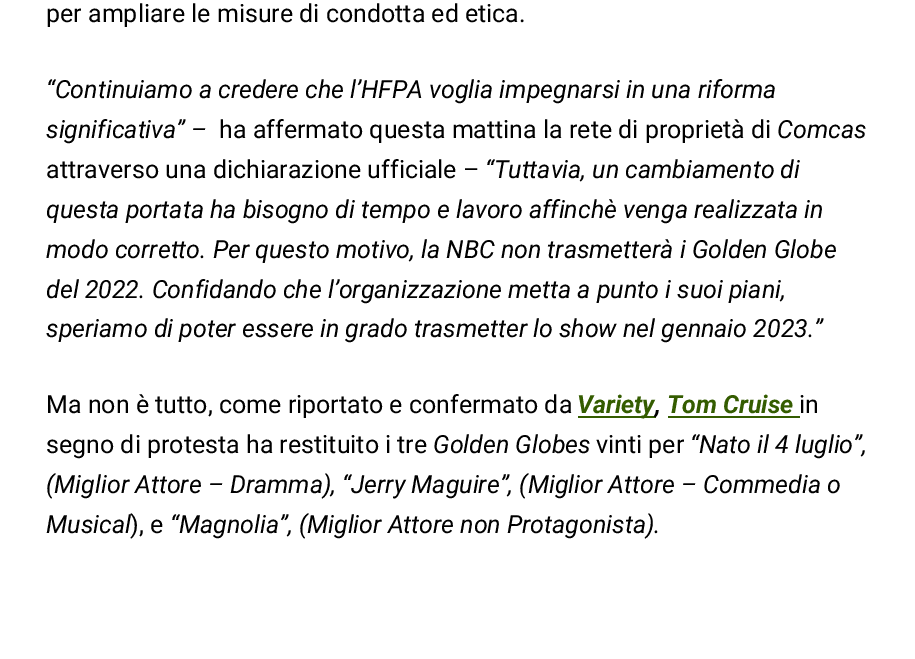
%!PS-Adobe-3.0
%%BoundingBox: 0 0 915 659
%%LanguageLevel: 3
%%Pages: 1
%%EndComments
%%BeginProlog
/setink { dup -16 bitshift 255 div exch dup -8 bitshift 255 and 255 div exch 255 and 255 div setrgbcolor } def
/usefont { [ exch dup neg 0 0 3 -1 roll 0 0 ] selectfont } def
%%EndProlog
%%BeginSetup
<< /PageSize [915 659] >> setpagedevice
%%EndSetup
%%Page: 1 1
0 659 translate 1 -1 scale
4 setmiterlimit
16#FFFFFF setink
0 0 915 659 rectfill
/Roboto-Regular 25 usefont
16#000000 setink
46 22 moveto (per ampliare le misure di condotta ed etica.) show
/Roboto-Italic 25 usefont
46 98 moveto (“Continuiamo a credere che l’HFPA voglia impegnarsi in una riforma) show
46 138 moveto (significativa” –) show
/Roboto-Regular 25 usefont
219 138 moveto (ha affermato questa mattina la rete di proprietà di) show
/Roboto-Italic 25 usefont
777 138 moveto (Comcas) show
/Roboto-Regular 25 usefont
46 178 moveto (attraverso una dichiarazione ufficiale –) show
/Roboto-Italic 25 usefont
[
    [(“Tuttavia, un cambiamento di) 485 178]
    [(questa portata ha bisogno di tempo e lavoro affinchè venga realizzata in) 46 218]
    [(modo corretto. Per questo motivo, la NBC non trasmetterà i Golden Globe) 46 258]
    [(del 2022. Confidando che l’organizzazione metta a punto i suoi piani,) 46 298]
    [(speriamo di poter essere in grado trasmetter lo show nel gennaio 2023.”) 46 337]
] { aload pop moveto show } forall
/Roboto-Regular 25 usefont
46 413 moveto (Ma non è tutto, come riportato e confermato da) show
16#345C00 setink
578 416 78 2 rectfill
/Roboto-BoldItalic 25 usefont
577 413 moveto (Variety) show
667 413 moveto (Tom Cruise) show
668 416 132 2 rectfill
/Roboto-Regular 25 usefont
16#000000 setink
799 413 moveto (in) show
/Roboto-BoldItalic 25 usefont
655 413 moveto (,) show
/Roboto-Regular 25 usefont
46 453 moveto (segno di protesta ha restituito i tre) show
/Roboto-Italic 25 usefont
433 453 moveto (Golden Globes) show
/Roboto-Regular 25 usefont
596 453 moveto (vinti per) show
/Roboto-Italic 25 usefont
[
    [(“Nato il 4 luglio”,) 690 453]
    [(\(Miglior Attore – Dramma\), “Jerry Maguire”, \(Miglior Attore – Commedia o) 46 493]
    [(Musical) 46 533]
] { aload pop moveto show } forall
/Roboto-Regular 25 usefont
130 533 moveto (\), e) show
/Roboto-Italic 25 usefont
170 533 moveto (“Magnolia”, \(Miglior Attore non Protagonista\).) show
showpage
%%EOF
